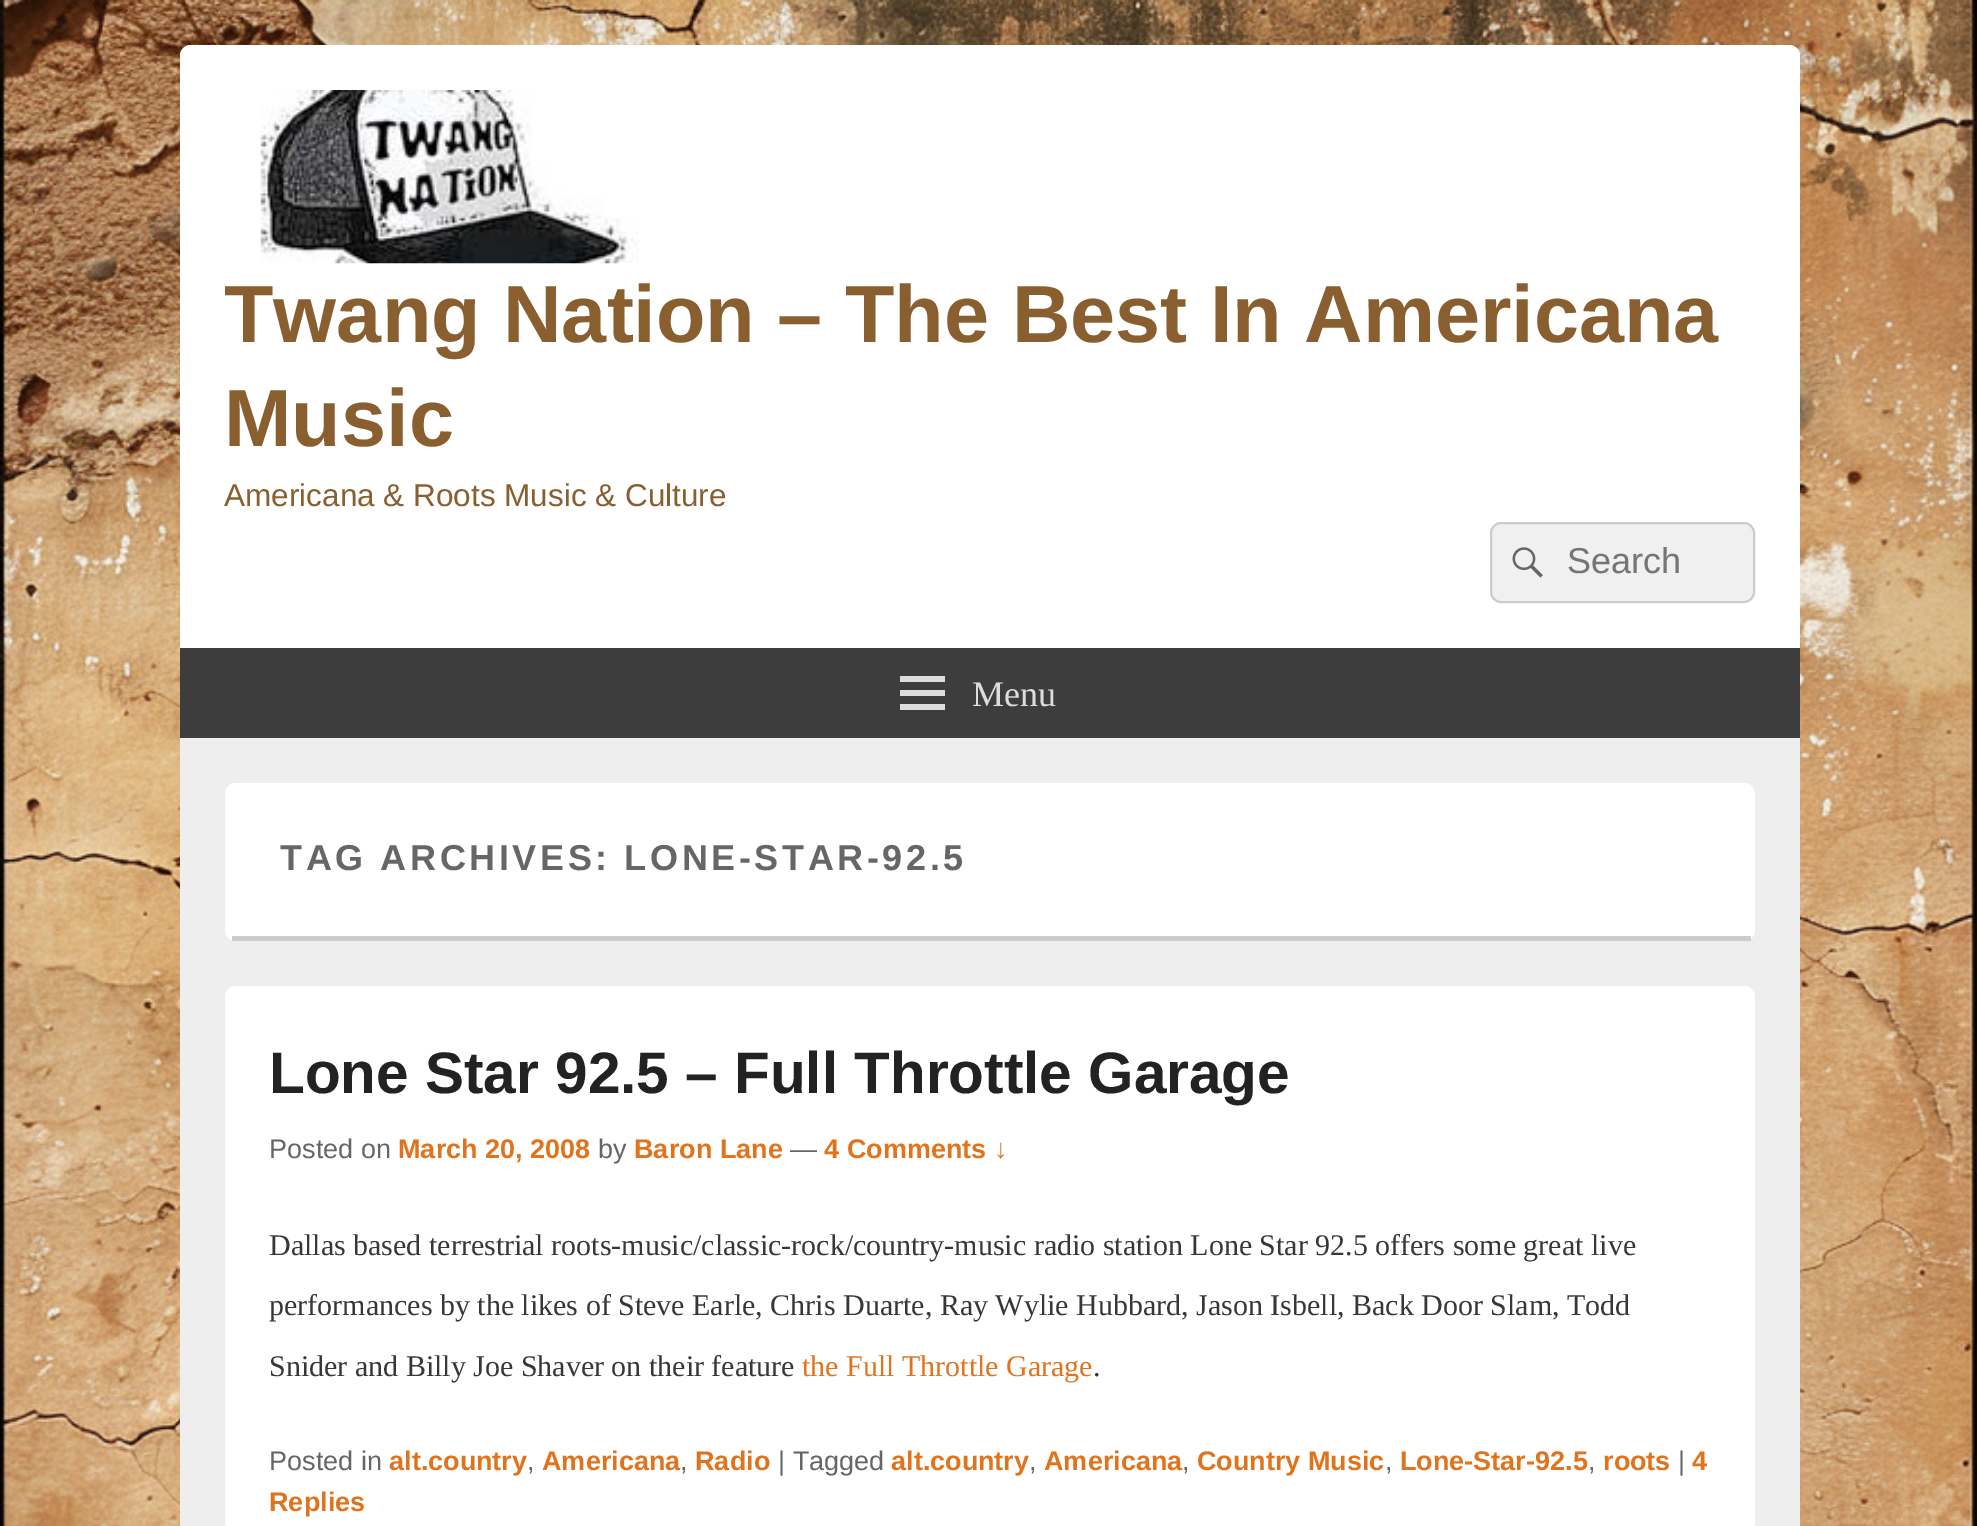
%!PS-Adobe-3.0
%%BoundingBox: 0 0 1977 1526
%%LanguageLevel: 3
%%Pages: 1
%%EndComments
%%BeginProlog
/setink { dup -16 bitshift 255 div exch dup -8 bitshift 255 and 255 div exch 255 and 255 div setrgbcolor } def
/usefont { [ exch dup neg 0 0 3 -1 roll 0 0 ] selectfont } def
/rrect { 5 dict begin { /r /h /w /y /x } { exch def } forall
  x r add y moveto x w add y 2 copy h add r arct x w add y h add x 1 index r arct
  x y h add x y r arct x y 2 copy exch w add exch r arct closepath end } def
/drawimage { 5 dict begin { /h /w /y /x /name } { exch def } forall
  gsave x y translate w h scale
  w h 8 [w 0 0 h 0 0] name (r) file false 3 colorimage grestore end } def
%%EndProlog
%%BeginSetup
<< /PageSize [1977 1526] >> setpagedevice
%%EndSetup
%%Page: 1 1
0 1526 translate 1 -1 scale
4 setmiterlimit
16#FFFFFF setink
0 0 1977 1526 rectfill
(img1.raw) 0 0 1977 1526 drawimage
16#EEEEEE setink
180 45 1620 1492 11 rrect fill
16#FFFFFF setink
191 45 moveto 1789 45 lineto 1795 45 1800 50 1800 56 curveto 1800 738 lineto 180 738 lineto 180 56 lineto 180 50 185 45 191 45 curveto closepath fill
(img2.raw) 260 90 379 174 drawimage
/LiberationSans-Bold 81 usefont
16#895F30 setink
224 342 moveto (Twang Nation – The Best In Americana) show
224 446 moveto (Music) show
/LiberationSans-Regular 31.5 usefont
224 506 moveto (Americana & Roots Music & Culture) show
16#F0F0F0 setink
1491 523 263 79 10 rrect gsave fill grestore
16#CCCCCC setink
2 setlinewidth
stroke
(img3.raw) 1512 547 31 31 drawimage
/LiberationSans-Regular 36 usefont
16#757575 setink
1567 573 moveto (Search) show
16#3D3D3D setink
180 648 1620 90 rectfill
16#DDDDDD setink
900 710 moveto 900 704 lineto 945 704 lineto 945 710 lineto closepath 900 676 moveto 945 676 lineto 945 682 lineto 900 682 lineto closepath 900 696 moveto 900 690 lineto 945 690 lineto 945 696 lineto closepath fill
/LiberationSerif-Regular 36 usefont
972 706 moveto (Menu) show
16#FFFFFF setink
225 783 1530 158 11 rrect fill
16#CCCCCC setink
232 936 1519 5 rectfill
/LiberationSans-Bold 36 usefont
16#666666 setink
280 870 moveto 3.6 0 (TAG ARCHIVES: LONE-STAR-92.5) ashow
16#FFFFFF setink
225 986 1530 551 11 rrect fill
/LiberationSans-Bold 58.5 usefont
16#222222 setink
269 1093 moveto (Lone Star 92.5 – Full Throttle Garage) show
/LiberationSans-Regular 27 usefont
16#666666 setink
269 1158 moveto (Posted on) show
/LiberationSans-Bold 27 usefont
16#E0731B setink
398 1158 moveto (March 20, 2008) show
/LiberationSans-Regular 27 usefont
16#666666 setink
598 1158 moveto (by) show
/LiberationSans-Bold 27 usefont
16#E0731B setink
634 1158 moveto (Baron Lane) show
/LiberationSans-Regular 27 usefont
16#666666 setink
790 1158 moveto (—) show
/LiberationSans-Bold 27 usefont
16#E0731B setink
824 1158 moveto (4 Comments ↓) show
/LiberationSerif-Regular 30 usefont
16#373737 setink
[
    [(Dallas based terrestrial roots-music/classic-rock/country-music radio station Lone Star 92.5 offers some great live) 269 1255]
    [(performances by the likes of Steve Earle, Chris Duarte, Ray Wylie Hubbard, Jason Isbell, Back Door Slam, Todd) 269 1315]
    [(Snider and Billy Joe Shaver on their feature) 269 1376]
] { aload pop moveto show } forall
16#E0731B setink
802 1376 moveto (the Full Throttle Garage) show
16#373737 setink
1093 1376 moveto (.) show
/LiberationSans-Regular 27 usefont
16#666666 setink
269 1470 moveto (Posted in) show
/LiberationSans-Bold 27 usefont
16#E0731B setink
389 1470 moveto (alt.country) show
/LiberationSans-Regular 27 usefont
16#666666 setink
527 1470 moveto (,) show
/LiberationSans-Bold 27 usefont
16#E0731B setink
542 1470 moveto (Americana) show
/LiberationSans-Regular 27 usefont
16#666666 setink
680 1470 moveto (,) show
/LiberationSans-Bold 27 usefont
16#E0731B setink
695 1470 moveto (Radio) show
/LiberationSans-Regular 27 usefont
16#666666 setink
778 1470 moveto (| Tagged) show
/LiberationSans-Bold 27 usefont
16#E0731B setink
891 1470 moveto (alt.country) show
/LiberationSans-Regular 27 usefont
16#666666 setink
1029 1470 moveto (,) show
/LiberationSans-Bold 27 usefont
16#E0731B setink
1044 1470 moveto (Americana) show
/LiberationSans-Regular 27 usefont
16#666666 setink
1182 1470 moveto (,) show
/LiberationSans-Bold 27 usefont
16#E0731B setink
1197 1470 moveto (Country Music) show
/LiberationSans-Regular 27 usefont
16#666666 setink
1385 1470 moveto (,) show
/LiberationSans-Bold 27 usefont
16#E0731B setink
1400 1470 moveto (Lone-Star-92.5) show
/LiberationSans-Regular 27 usefont
16#666666 setink
1588 1470 moveto (,) show
/LiberationSans-Bold 27 usefont
16#E0731B setink
1603 1470 moveto (roots) show
/LiberationSans-Regular 27 usefont
16#666666 setink
1678 1470 moveto (|) show
/LiberationSans-Bold 27 usefont
16#E0731B setink
1692 1470 moveto (4) show
269 1511 moveto (Replies) show
showpage
%%EOF
